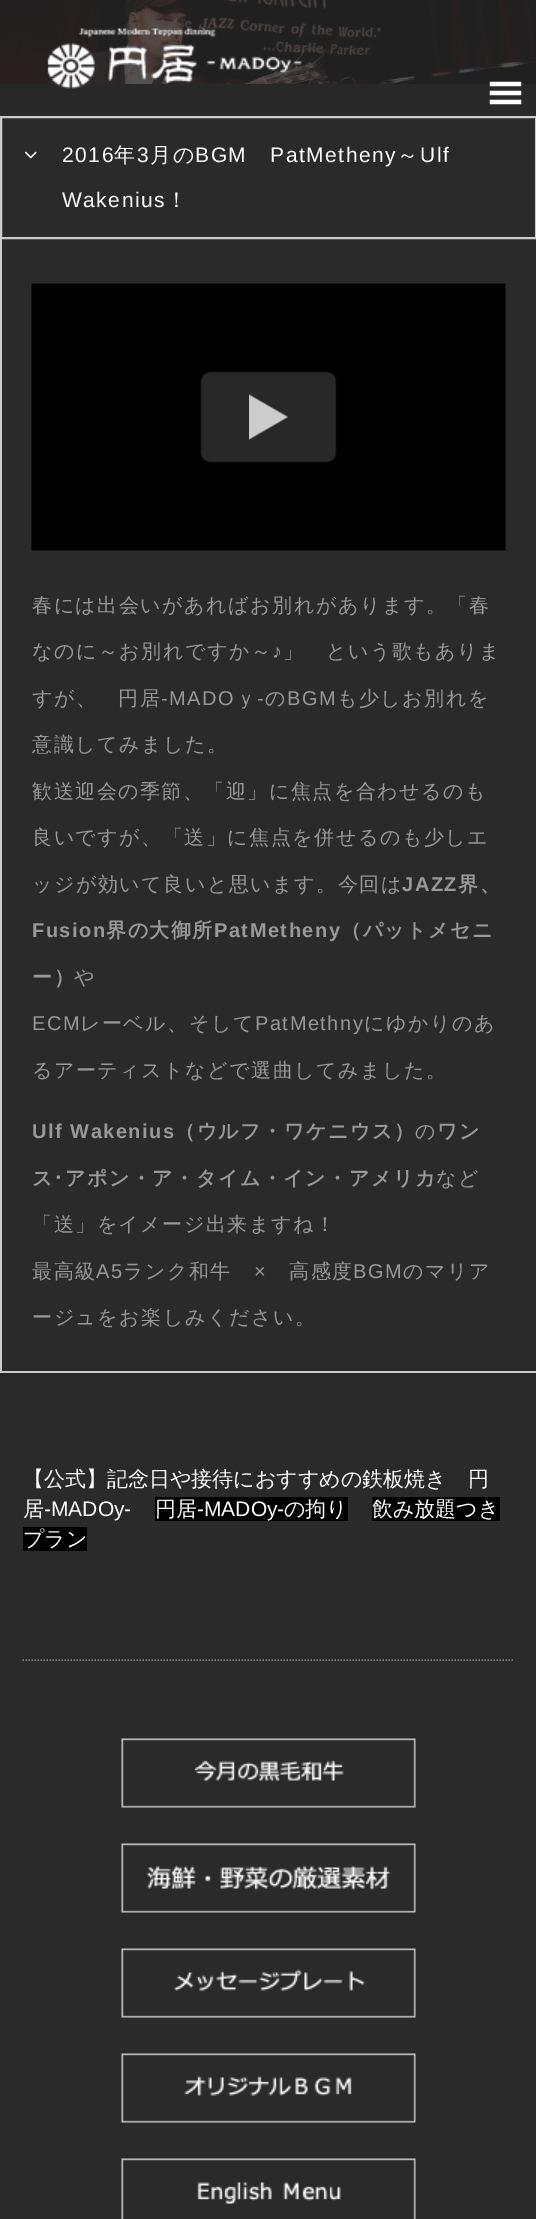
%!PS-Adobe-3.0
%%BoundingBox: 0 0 536 2219
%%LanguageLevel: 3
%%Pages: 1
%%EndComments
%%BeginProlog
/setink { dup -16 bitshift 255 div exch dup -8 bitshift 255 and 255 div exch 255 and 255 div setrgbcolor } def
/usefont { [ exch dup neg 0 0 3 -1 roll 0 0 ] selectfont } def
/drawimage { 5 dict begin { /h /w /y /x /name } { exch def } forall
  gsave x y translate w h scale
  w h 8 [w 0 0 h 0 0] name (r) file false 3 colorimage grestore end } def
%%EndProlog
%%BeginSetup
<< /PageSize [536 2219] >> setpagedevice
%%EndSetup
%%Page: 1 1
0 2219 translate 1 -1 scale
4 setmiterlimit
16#FFFFFF setink
0 0 536 2219 rectfill
(img1.raw) 0 0 536 84 drawimage
16#282828 setink
0 84 536 29 rectfill
(img2.raw) 47 28 255 61 drawimage
(img3.raw) 489 81 33 24 drawimage
16#2A2A2A setink
0 113 536 2106 rectfill
16#CCCCCC setink
2 setlinewidth
1 117 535 121 rectstroke
(img4.raw) 24 151 13 8 drawimage
/LiberationSans-Regular 21 usefont
16#FFFFFF setink
62 162 moveto 1.5 0 (2016) ashow
/WenQuanYiZenHei-Medium 21 usefont
114 162 moveto 1.5 0 (年) ashow
/LiberationSans-Regular 21 usefont
137 162 moveto 1.5 0 (3) ashow
/WenQuanYiZenHei-Medium 21 usefont
150 162 moveto 1.5 0 (月の) ashow
/LiberationSans-Regular 21 usefont
195 162 moveto 1.5 0 (BGM) ashow
270 162 moveto 1.5 0 (PatMetheny) ashow
/WenQuanYiZenHei-Medium 21 usefont
397 162 moveto 1.5 0 (～) ashow
/LiberationSans-Regular 21 usefont
420 162 moveto 1.5 0 (Ulf) ashow
62 207 moveto 1.5 0 (Wakenius) ashow
/WenQuanYiZenHei-Medium 21 usefont
166 207 moveto 1.5 0 (！) ashow
16#CCCCCC setink
0 1371 536 2 rectfill
0 239 2 1134 rectfill
(img5.raw) 31 283 475 268 drawimage
/WenQuanYiZenHei-Medium 20 usefont
16#999999 setink
32 612 moveto 1.5 0 (春には出会いがあればお別れがあります。「春) ashow
32 658 moveto 1.5 0 (なのに～お別れですか～) ashow
/LiberationSans-Regular 20 usefont
272 658 moveto 1.5 0 (♪) ashow
/WenQuanYiZenHei-Medium 20 usefont
283 658 moveto 1.5 0 (」　という歌もありま) ashow
32 705 moveto 1.5 0 (すが、) ashow
118 705 moveto 1.5 0 (円居) ashow
/LiberationSans-Regular 20 usefont
161 705 moveto 1.5 0 (-MADO) ashow
/WenQuanYiZenHei-Medium 20 usefont
236 705 moveto 1.5 0 (ｙ) ashow
/LiberationSans-Regular 20 usefont
257 705 moveto 1.5 0 (-) ashow
/WenQuanYiZenHei-Medium 20 usefont
265 705 moveto 1.5 0 (の) ashow
/LiberationSans-Regular 20 usefont
287 705 moveto 1.5 0 (BGM) ashow
/WenQuanYiZenHei-Medium 20 usefont
337 705 moveto 1.5 0 (も少しお別れを) ashow
32 751 moveto 1.5 0 (意識してみました。) ashow
32 798 moveto 1.5 0 (歓送迎会の季節、「迎」に焦点を合わせるのも) ashow
32 844 moveto 1.5 0 (良いですが、「送」に焦点を併せるのも少しエ) ashow
32 891 moveto 1.5 0 (ッジが効いて良いと思います。今回は) ashow
/LiberationSans-Bold 20 usefont
402 891 moveto 1.5 0 (JAZZ) ashow
/WenQuanYiZenHei-Bold 20 usefont
458 891 moveto 1.5 0 (界、) ashow
/LiberationSans-Bold 20 usefont
32 937 moveto 1.5 0 (Fusion) ashow
/WenQuanYiZenHei-Bold 20 usefont
106 937 moveto 1.5 0 (界の大御所) ashow
/LiberationSans-Bold 20 usefont
214 937 moveto 1.5 0 (PatMetheny) ashow
/WenQuanYiZenHei-Bold 20 usefont
341 937 moveto 1.5 0 (（パットメセニ) ashow
32 984 moveto 1.5 0 (ー）) ashow
/WenQuanYiZenHei-Medium 20 usefont
74 984 moveto 1.5 0 (や) ashow
/LiberationSans-Regular 20 usefont
32 1030 moveto 1.5 0 (ECM) ashow
/WenQuanYiZenHei-Medium 20 usefont
80 1030 moveto 1.5 0 (レーベル、そして) ashow
/LiberationSans-Regular 20 usefont
255 1030 moveto 1.5 0 (PatMethny) ashow
/WenQuanYiZenHei-Medium 20 usefont
364 1030 moveto 1.5 0 (にゆかりのあ) ashow
32 1077 moveto 1.5 0 (るアーティストなどで選曲してみました。) ashow
/LiberationSans-Bold 20 usefont
32 1138 moveto 1.5 0 (Ulf Wakenius) ashow
/WenQuanYiZenHei-Bold 20 usefont
175 1138 moveto 1.5 0 (（ウルフ・ワケニウス）) ashow
/WenQuanYiZenHei-Medium 20 usefont
415 1138 moveto 1.5 0 (の) ashow
/WenQuanYiZenHei-Bold 20 usefont
437 1138 moveto 1.5 0 (ワン) ashow
32 1185 moveto 1.5 0 (ス) ashow
/IPAPGothic-Bold 20 usefont
53 1185 moveto 1.5 0 (･) ashow
/WenQuanYiZenHei-Bold 20 usefont
65 1185 moveto 1.5 0 (アポン・ア・タイム・イン・アメリカ) ashow
/WenQuanYiZenHei-Medium 20 usefont
436 1185 moveto 1.5 0 (など) ashow
32 1231 moveto 1.5 0 (「送」をイメージ出来ますね！) ashow
32 1278 moveto 1.5 0 (最高級) ashow
/LiberationSans-Regular 20 usefont
96 1278 moveto 1.5 0 (A5) ashow
/WenQuanYiZenHei-Medium 20 usefont
123 1278 moveto 1.5 0 (ランク和牛) ashow
/LiberationSans-Regular 20 usefont
254 1278 moveto 1.5 0 (×) ashow
/WenQuanYiZenHei-Medium 20 usefont
289 1278 moveto 1.5 0 (高感度) ashow
/LiberationSans-Regular 20 usefont
353 1278 moveto 1.5 0 (BGM) ashow
/WenQuanYiZenHei-Medium 20 usefont
403 1278 moveto 1.5 0 (のマリア) ashow
32 1324 moveto 1.5 0 (ージュをお楽しみください。) ashow
/WenQuanYiZenHei-Medium 21 usefont
16#FFFFFF setink
23 1486 moveto (【公式】記念日や接待におすすめの鉄板焼き　円) show
23 1516 moveto (居) show
/LiberationSans-Regular 21 usefont
44 1516 moveto (-MADOy-) show
16#000000 setink
155 1497 193 24 rectfill
/WenQuanYiZenHei-Medium 21 usefont
16#FFFFFF setink
155 1516 moveto (円居) show
/LiberationSans-Regular 21 usefont
197 1516 moveto (-MADOy-) show
/WenQuanYiZenHei-Medium 21 usefont
284 1516 moveto (の拘り) show
16#000000 setink
372 1497 128 24 rectfill
16#FFFFFF setink
372 1516 moveto (飲み放題つき) show
16#000000 setink
23 1527 64 24 rectfill
16#FFFFFF setink
23 1546 moveto (プラン) show
16#808080 setink
1.5 setlinewidth
[1.5 1.5] 0 setdash
22.5 1660 moveto 514.5 1660 lineto stroke
(img6.raw) 121 1738 295 70 drawimage
(img7.raw) 121 1843 295 70 drawimage
(img8.raw) 121 1948 295 70 drawimage
(img9.raw) 121 2053 295 70 drawimage
(img10.raw) 121 2158 295 61 drawimage
showpage
%%EOF
